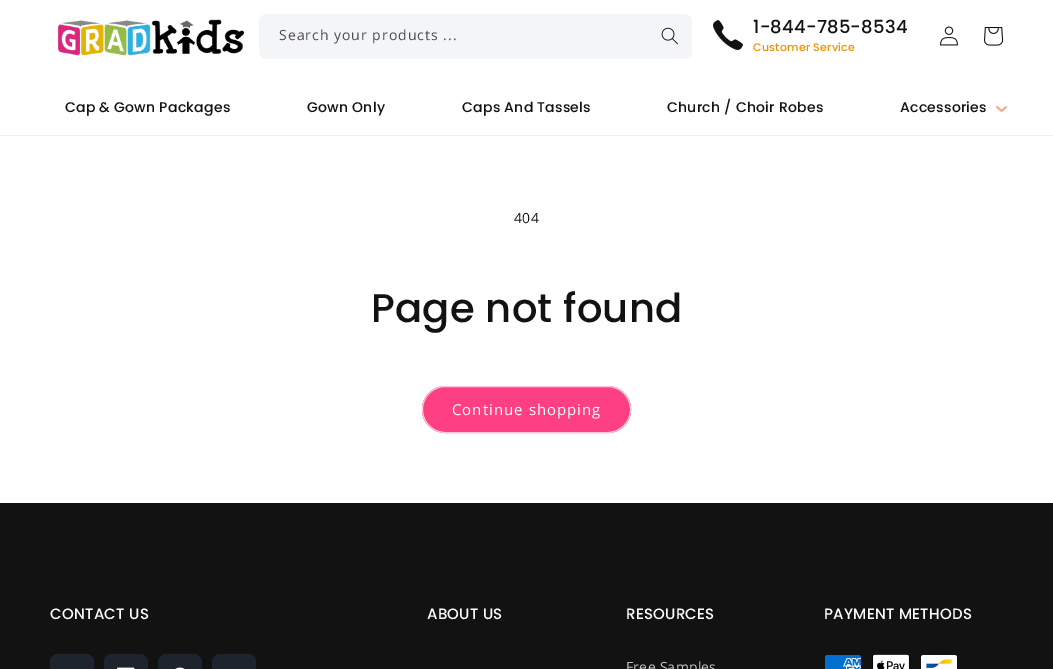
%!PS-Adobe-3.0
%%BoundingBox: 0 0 1053 669
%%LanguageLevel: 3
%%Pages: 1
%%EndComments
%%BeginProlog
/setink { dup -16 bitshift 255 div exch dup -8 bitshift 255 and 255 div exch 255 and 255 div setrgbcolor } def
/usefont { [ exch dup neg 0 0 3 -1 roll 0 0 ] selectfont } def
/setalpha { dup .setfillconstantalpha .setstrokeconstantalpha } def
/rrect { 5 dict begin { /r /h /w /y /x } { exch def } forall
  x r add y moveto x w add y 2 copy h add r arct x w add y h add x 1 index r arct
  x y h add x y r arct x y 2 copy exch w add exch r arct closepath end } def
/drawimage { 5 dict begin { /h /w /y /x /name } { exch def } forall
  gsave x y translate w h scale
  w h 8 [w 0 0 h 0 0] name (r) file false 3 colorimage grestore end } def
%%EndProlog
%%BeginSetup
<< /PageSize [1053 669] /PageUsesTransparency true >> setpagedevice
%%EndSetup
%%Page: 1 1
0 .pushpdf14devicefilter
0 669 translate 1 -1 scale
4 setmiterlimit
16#FFFFFF setink
0 0 1053 669 rectfill
16#ECECEC setink
0 135 1053 1 rectfill
(img1.raw) 58 19 186 37 drawimage
16#F4F5F7 setink
259 14 433 45 8 rrect fill
/OpenSans-Regular 14 usefont
16#4B4B4B setink
279 40 moveto 1 0 (Search your products ...) ashow
(img2.raw) 661 27 17 18 drawimage
(img3.raw) 713 20 30 30 drawimage
/Poppins-Medium 18 usefont
16#121212 setink
753 33 moveto 0.25 0 (1-844-785-8534) ashow
/Poppins-Medium 11 usefont
16#ED9300 setink
753 51 moveto 0.25 0 (Customer Service) ashow
(img4.raw) 940 26 18 20 drawimage
(img5.raw) 984 27 20 19 drawimage
/Poppins-Medium 14 usefont
16#121212 setink
65 112 moveto 0.25 0 (Cap & Gown Packages) ashow
307 112 moveto 0.25 0 (Gown Only) ashow
462 112 moveto 0.25 0 (Caps And Tassels) ashow
667 112 moveto 0.25 0 (Church / Choir Robes) ashow
900 112 moveto 0.25 0 (Accessories) ashow
(img6.raw) 996 106 11 6 drawimage
/OpenSans-Regular 14 usefont
514 223 moveto 0.25 0 (404) ashow
/Poppins-Medium 40 usefont
371 322 moveto 0.25 0 (Page not found) ashow
16#FE4082 setink
422 386 209 47 23.5 rrect fill
422.5 386.5 208 46 23 rrect stroke
0.7 setalpha
16#FFFFFF setink
422.5 386.5 208 46 23 rrect stroke
/OpenSans-Regular 15 usefont
1 setalpha
452 415 moveto 1 0 (Continue shopping) ashow
16#121212 setink
0 503 1053 166 rectfill
/Poppins-Medium 15 usefont
16#FFFFFF setink
50 619 moveto 0.25 0 (CONTACT US) ashow
16#1E242E setink
50 654 44 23 8 rrect fill
104 654 44 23 8 rrect fill
(img7.raw) 117 667 18 2 drawimage
158 654 44 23 8 rrect fill
(img8.raw) 175 667 10 2 drawimage
212 654 44 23 8 rrect fill
16#FFFFFF setink
427 619 moveto 0.25 0 (ABOUT US) ashow
626 619 moveto 0.25 0 (RESOURCES) ashow
/OpenSans-Regular 14 usefont
16#C4C4C4 setink
626 672 moveto 0.25 0 (Free Samples) ashow
/Poppins-Medium 15 usefont
16#FFFFFF setink
824 619 moveto 0.25 0 (PAYMENT METHODS) ashow
(img9.raw) 825 655 36 14 drawimage
(img10.raw) 872 654 38 15 drawimage
(img11.raw) 921 655 36 14 drawimage
.poppdf14devicefilter showpage
%%EOF
